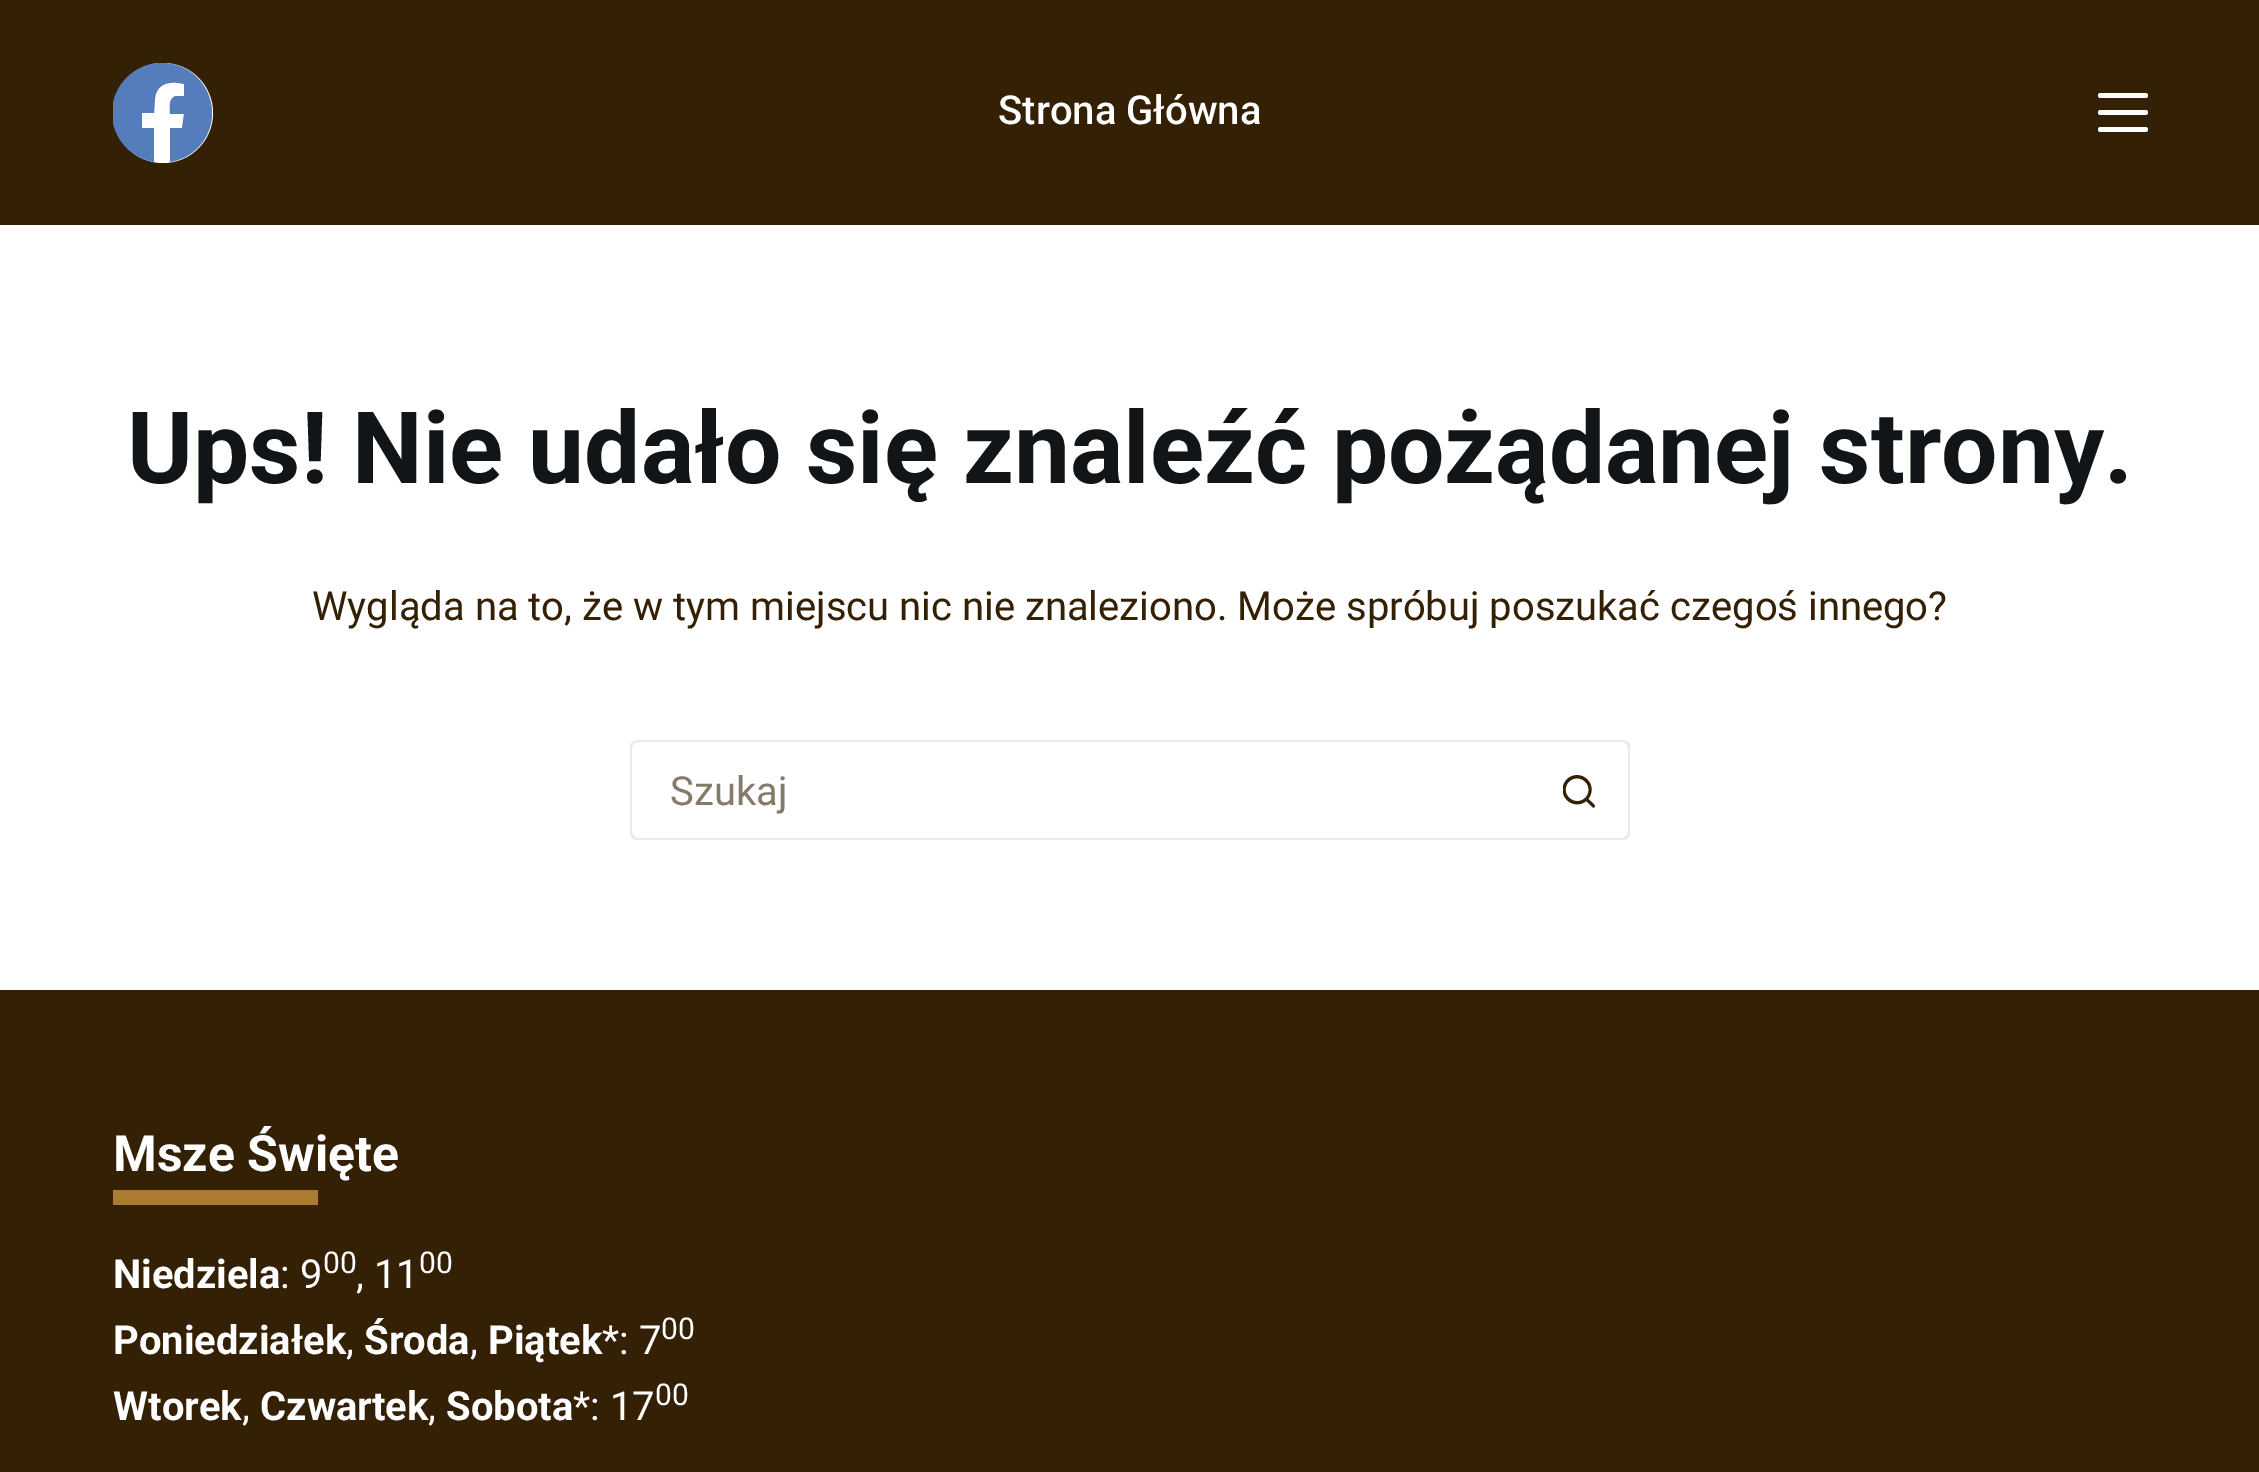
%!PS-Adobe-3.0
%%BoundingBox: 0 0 2259 1472
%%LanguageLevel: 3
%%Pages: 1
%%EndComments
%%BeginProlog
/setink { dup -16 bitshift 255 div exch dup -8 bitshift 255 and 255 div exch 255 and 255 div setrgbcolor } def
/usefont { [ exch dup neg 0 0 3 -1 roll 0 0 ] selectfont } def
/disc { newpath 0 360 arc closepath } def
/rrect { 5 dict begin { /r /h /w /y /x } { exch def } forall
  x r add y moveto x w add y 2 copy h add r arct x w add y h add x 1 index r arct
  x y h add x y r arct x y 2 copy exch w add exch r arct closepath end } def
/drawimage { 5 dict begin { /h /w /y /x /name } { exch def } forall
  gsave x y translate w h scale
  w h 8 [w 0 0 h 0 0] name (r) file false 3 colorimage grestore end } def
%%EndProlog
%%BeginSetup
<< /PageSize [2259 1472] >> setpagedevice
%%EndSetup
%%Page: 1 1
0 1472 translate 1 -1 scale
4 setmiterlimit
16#FFFFFF setink
0 0 2259 1472 rectfill
16#342005 setink
0 0 2259 225 rectfill
16#FFFFFF setink
163 113 50 disc fill
gsave
113 63 100 100 rectclip
16#557DBC setink
212 113 moveto 212 86 190 63 162 63 curveto 135 63 112 85 112 113 curveto 112 138 131 158 154 162 curveto 154 128 lineto 142 128 lineto 142 113 lineto 154 113 lineto 155 98 lineto 157 82 172 81 184 84 curveto 184 96 lineto 176 96 lineto 168 98 170 108 170 114 curveto 184 114 lineto 182 128 lineto 170 128 lineto 170 162 lineto 194 158 212 138 212 113 curveto closepath fill
grestore
/Roboto-Medium 40 usefont
998 124 moveto (Strona Główna) show
2098 93 50 5 2.5 rrect fill
2098 110 50 5 2.5 rrect fill
2098 127 50 5 2.5 rrect fill
/Roboto-Bold 100 usefont
16#111518 setink
127 483 moveto (Ups! Nie udało się znaleźć pożądanej strony.) show
/Roboto-Regular 40 usefont
16#342005 setink
312 620 moveto (Wygląda na to, że w tym miejscu nic nie znaleziono. Może spróbuj poszukać czegoś innego?) show
16#EAEAEC setink
638 740 moveto 1530 740 lineto 1530 840 lineto 638 840 lineto 633 840 630 837 630 832 curveto 630 748 lineto 630 743 633 740 638 740 curveto closepath 638 742 moveto 1530 742 lineto 1530 838 lineto 638 838 lineto 635 838 632 835 632 832 curveto 632 748 lineto 632 745 635 742 638 742 curveto closepath eofill
16#857969 setink
670 805 moveto (Szukaj) show
16#EAEAEC setink
1530 740 moveto 1622 740 lineto 1627 740 1630 743 1630 748 curveto 1630 832 lineto 1630 837 1627 840 1622 840 curveto 1530 840 lineto closepath 1530 742 moveto 1622 742 lineto 1625 742 1628 745 1628 748 curveto 1628 832 lineto 1628 835 1625 838 1622 838 curveto 1530 838 lineto closepath eofill
(img1.raw) 1563 775 32 33 drawimage
16#342005 setink
0 990 2259 482 rectfill
/Roboto-Bold 50 usefont
16#FFFFFF setink
113 1171 moveto (Msze Święte) show
16#AC7B31 setink
113 1190 205 15 rectfill
/Roboto-Bold 40 usefont
16#FFFFFF setink
113 1288 moveto (Niedziela) show
/Roboto-Regular 40 usefont
280 1288 moveto (: 9) show
/Roboto-Regular 30 usefont
323 1273 moveto (00) show
/Roboto-Regular 40 usefont
356 1288 moveto (, 11) show
/Roboto-Regular 30 usefont
419 1273 moveto (00) show
/Roboto-Bold 40 usefont
113 1354 moveto (Poniedziałek) show
/Roboto-Regular 40 usefont
346 1354 moveto (,) show
/Roboto-Bold 40 usefont
364 1354 moveto (Środa) show
/Roboto-Regular 40 usefont
470 1354 moveto (,) show
/Roboto-Bold 40 usefont
488 1354 moveto (Piątek) show
/Roboto-Regular 40 usefont
602 1354 moveto (*: 7) show
/Roboto-Regular 30 usefont
661 1339 moveto (00) show
/Roboto-Bold 40 usefont
113 1420 moveto (Wtorek) show
/Roboto-Regular 40 usefont
242 1420 moveto (,) show
/Roboto-Bold 40 usefont
260 1420 moveto (Czwartek) show
/Roboto-Regular 40 usefont
428 1420 moveto (,) show
/Roboto-Bold 40 usefont
446 1420 moveto (Sobota) show
/Roboto-Regular 40 usefont
573 1420 moveto (*: 17) show
/Roboto-Regular 30 usefont
655 1405 moveto (00) show
showpage
%%EOF
